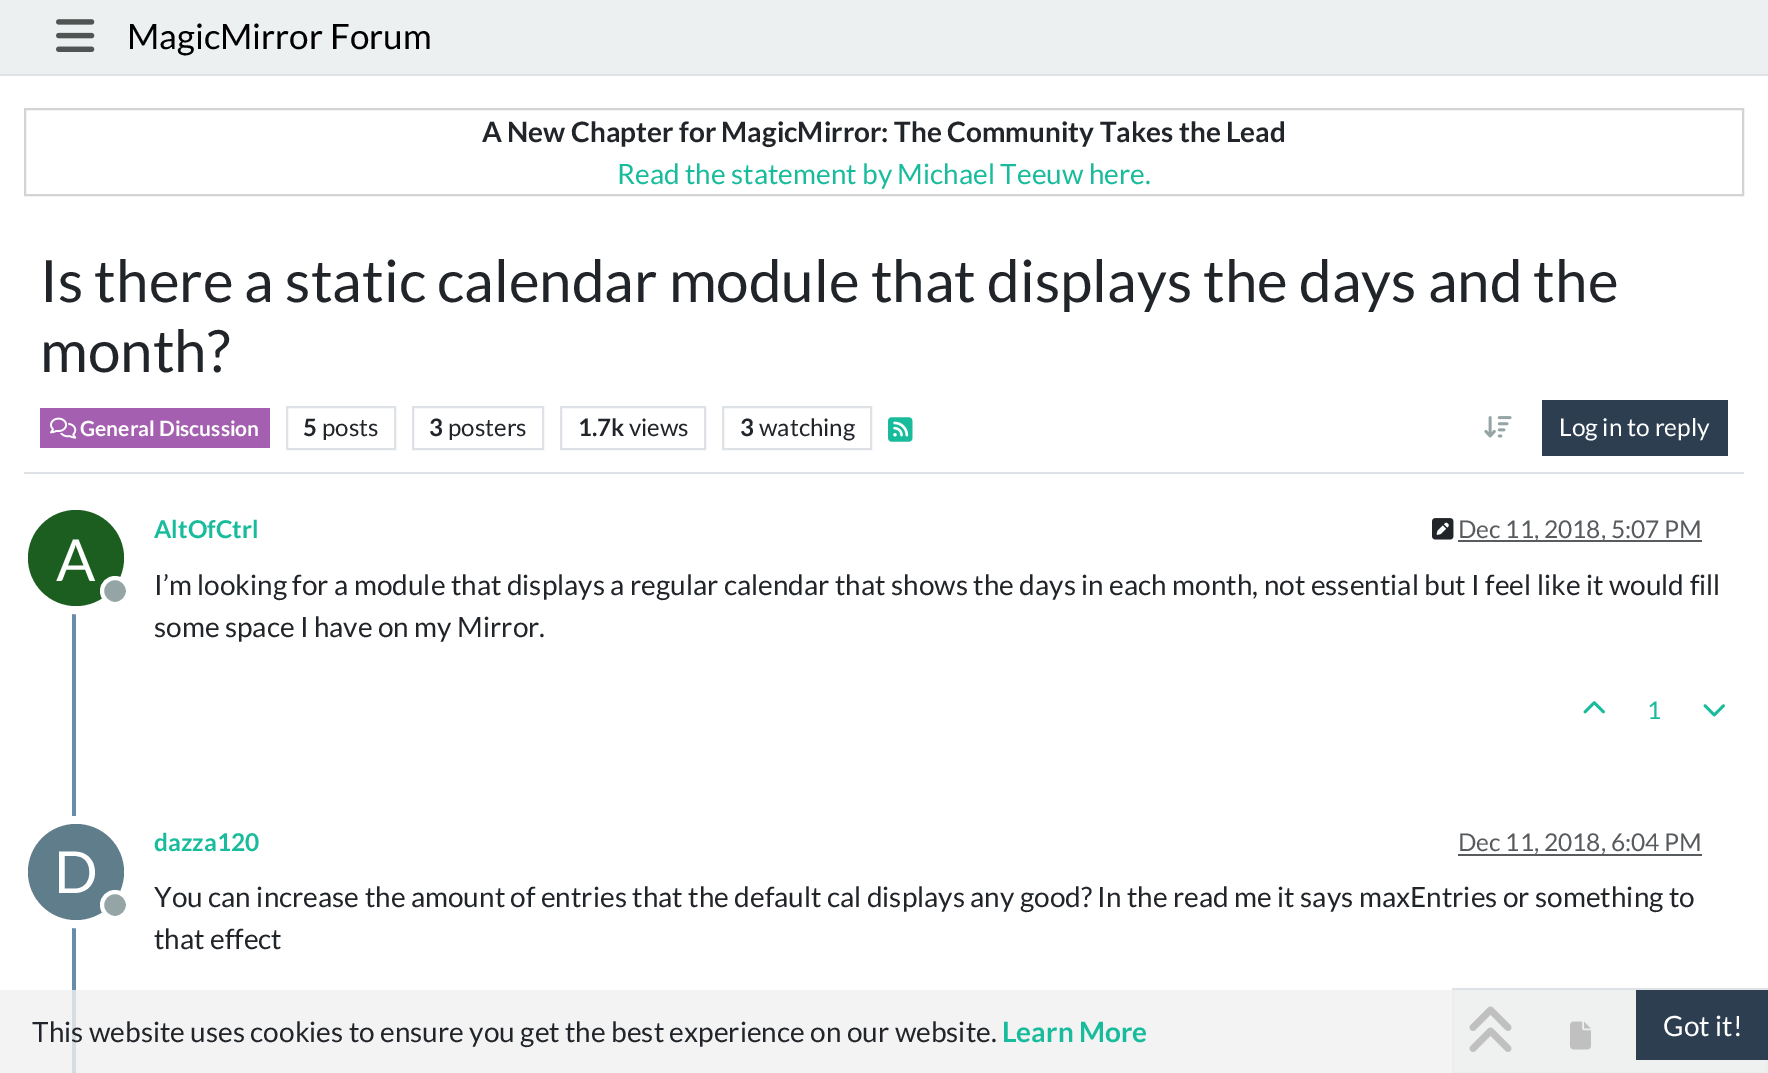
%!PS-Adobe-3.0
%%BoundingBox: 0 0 1768 1073
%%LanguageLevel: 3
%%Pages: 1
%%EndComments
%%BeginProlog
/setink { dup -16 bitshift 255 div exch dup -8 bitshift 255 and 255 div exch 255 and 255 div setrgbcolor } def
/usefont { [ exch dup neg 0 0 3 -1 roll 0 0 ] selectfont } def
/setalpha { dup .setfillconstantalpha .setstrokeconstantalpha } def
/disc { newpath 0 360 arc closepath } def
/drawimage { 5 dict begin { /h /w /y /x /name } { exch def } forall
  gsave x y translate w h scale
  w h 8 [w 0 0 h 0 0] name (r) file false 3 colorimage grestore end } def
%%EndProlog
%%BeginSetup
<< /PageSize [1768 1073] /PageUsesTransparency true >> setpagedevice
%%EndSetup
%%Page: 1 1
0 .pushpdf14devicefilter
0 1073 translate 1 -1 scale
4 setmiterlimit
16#FFFFFF setink
0 0 1768 1073 rectfill
16#ECF0F1 setink
0 0 1768 74 rectfill
16#DEE2E6 setink
0 74 1768 2 rectfill
(img1.raw) 56 19 39 33 drawimage
/Lato-Regular 35 usefont
16#000000 setink
127 49 moveto (MagicMirror Forum) show
16#D3D3D3 setink
2 setlinewidth
25 109 1718 86 rectstroke
/Lato-Bold 28 usefont
16#212529 setink
482 142 moveto (A New Chapter for MagicMirror: The Community Takes the Lead) show
/Lato-Regular 28 usefont
16#18BC9C setink
617 184 moveto (Read the statement by Michael Teeuw here.) show
16#DEE2E6 setink
24 472 1720 2 rectfill
/Lato-Regular 58.3 usefont
16#212529 setink
40 302 moveto (Is there a static calendar module that displays the days and the) show
40 372 moveto (month?) show
16#A55FB0 setink
40 408 230 40 rectfill
(img2.raw) 50 417 27 22 drawimage
/Lato-Bold 21 usefont
16#FFFFFF setink
80 436 moveto (General Discussion) show
16#DEE2E6 setink
287 407 108 42 rectstroke
/Lato-Bold 24 usefont
16#212529 setink
303 436 moveto (5) show
/Lato-Regular 24 usefont
322 436 moveto (posts) show
16#DEE2E6 setink
413 407 130 42 rectstroke
/Lato-Bold 24 usefont
16#212529 setink
429 436 moveto (3) show
/Lato-Regular 24 usefont
448 436 moveto (posters) show
16#DEE2E6 setink
561 407 144 42 rectstroke
/Lato-Bold 24 usefont
16#212529 setink
578 436 moveto (1.7k) show
/Lato-Regular 24 usefont
629 436 moveto (views) show
16#DEE2E6 setink
723 407 148 42 rectstroke
/Lato-Bold 24 usefont
16#212529 setink
740 436 moveto (3) show
/Lato-Regular 24 usefont
759 436 moveto (watching) show
(img3.raw) 888 417 25 25 drawimage
(img4.raw) 1484 416 28 22 drawimage
16#2C3E50 setink
1542 400 186 56 rectfill
/Lato-Regular 24.5 usefont
16#FFFFFF setink
1559 436 moveto (Log in to reply) show
16#698BAC setink
72 506 4 567 rectfill
/Lato-Bold 24.5 usefont
16#18BC9C setink
154 538 moveto (AltOfCtrl) show
(img5.raw) 1432 518 22 22 drawimage
16#595C5F setink
1458 540 244 2 rectfill
/Lato-Regular 24.5 usefont
16#585B5E setink
1458 538 moveto (Dec 11, 2018, 5:07 PM) show
16#FFFFFF setink
8 setlinewidth
76 558 52 disc stroke
16#1B5E20 setink
76 558 48 disc fill
/Lato-Regular 58 usefont
16#FFFFFF setink
56 581 moveto (A) show
16#95A5A6 setink
115 591 13 disc gsave fill grestore
16#FFFFFF setink
4 setlinewidth
stroke
/Lato-Regular 28 usefont
16#212529 setink
154 595 moveto (I’m looking for a module that displays a regular calendar that shows the days in each month, not essential but I feel like it would fill) show
154 637 moveto (some space I have on my Mirror.) show
(img6.raw) 1583 701 22 13 drawimage
/Lato-Regular 24.5 usefont
16#18BC9C setink
1647 719 moveto (1) show
(img7.raw) 1703 704 22 13 drawimage
/Lato-Bold 24.5 usefont
154 851 moveto (dazza120) show
16#595C5F setink
1458 854 244 2 rectfill
/Lato-Regular 24.5 usefont
16#585B5E setink
1458 851 moveto (Dec 11, 2018, 6:04 PM) show
16#FFFFFF setink
8 setlinewidth
76 872 52 disc stroke
16#607D8B setink
76 872 48 disc fill
/Lato-Regular 58 usefont
16#FFFFFF setink
54 893 moveto (D) show
16#95A5A6 setink
115 905 13 disc gsave fill grestore
16#FFFFFF setink
4 setlinewidth
stroke
/Lato-Regular 28 usefont
16#212529 setink
154 907 moveto (You can increase the amount of entries that the default cal displays any good? In the read me it says maxEntries or something to) show
154 949 moveto (that effect) show
16#ECF0F1 setink
1453 989 moveto 1767 989 lineto 1767 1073 lineto 1453 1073 lineto closepath gsave fill grestore
16#DEE2E6 setink
2 setlinewidth
stroke
(img8.raw) 1469 1006 43 46 drawimage
(img9.raw) 1570 1021 21 29 drawimage
0.8 setalpha
16#F0F0F0 setink
0 990 1768 83 rectfill
1 setalpha
16#212529 setink
32 1042 moveto (This website uses cookies to ensure you get the best experience on our website.) show
/Lato-Bold 28 usefont
16#18BC9C setink
1002 1042 moveto (Learn More) show
16#2C3E50 setink
1636 990 132 70 rectfill
/Lato-Regular 28 usefont
16#FFFFFF setink
1663 1036 moveto (Got it!) show
.poppdf14devicefilter showpage
%%EOF
